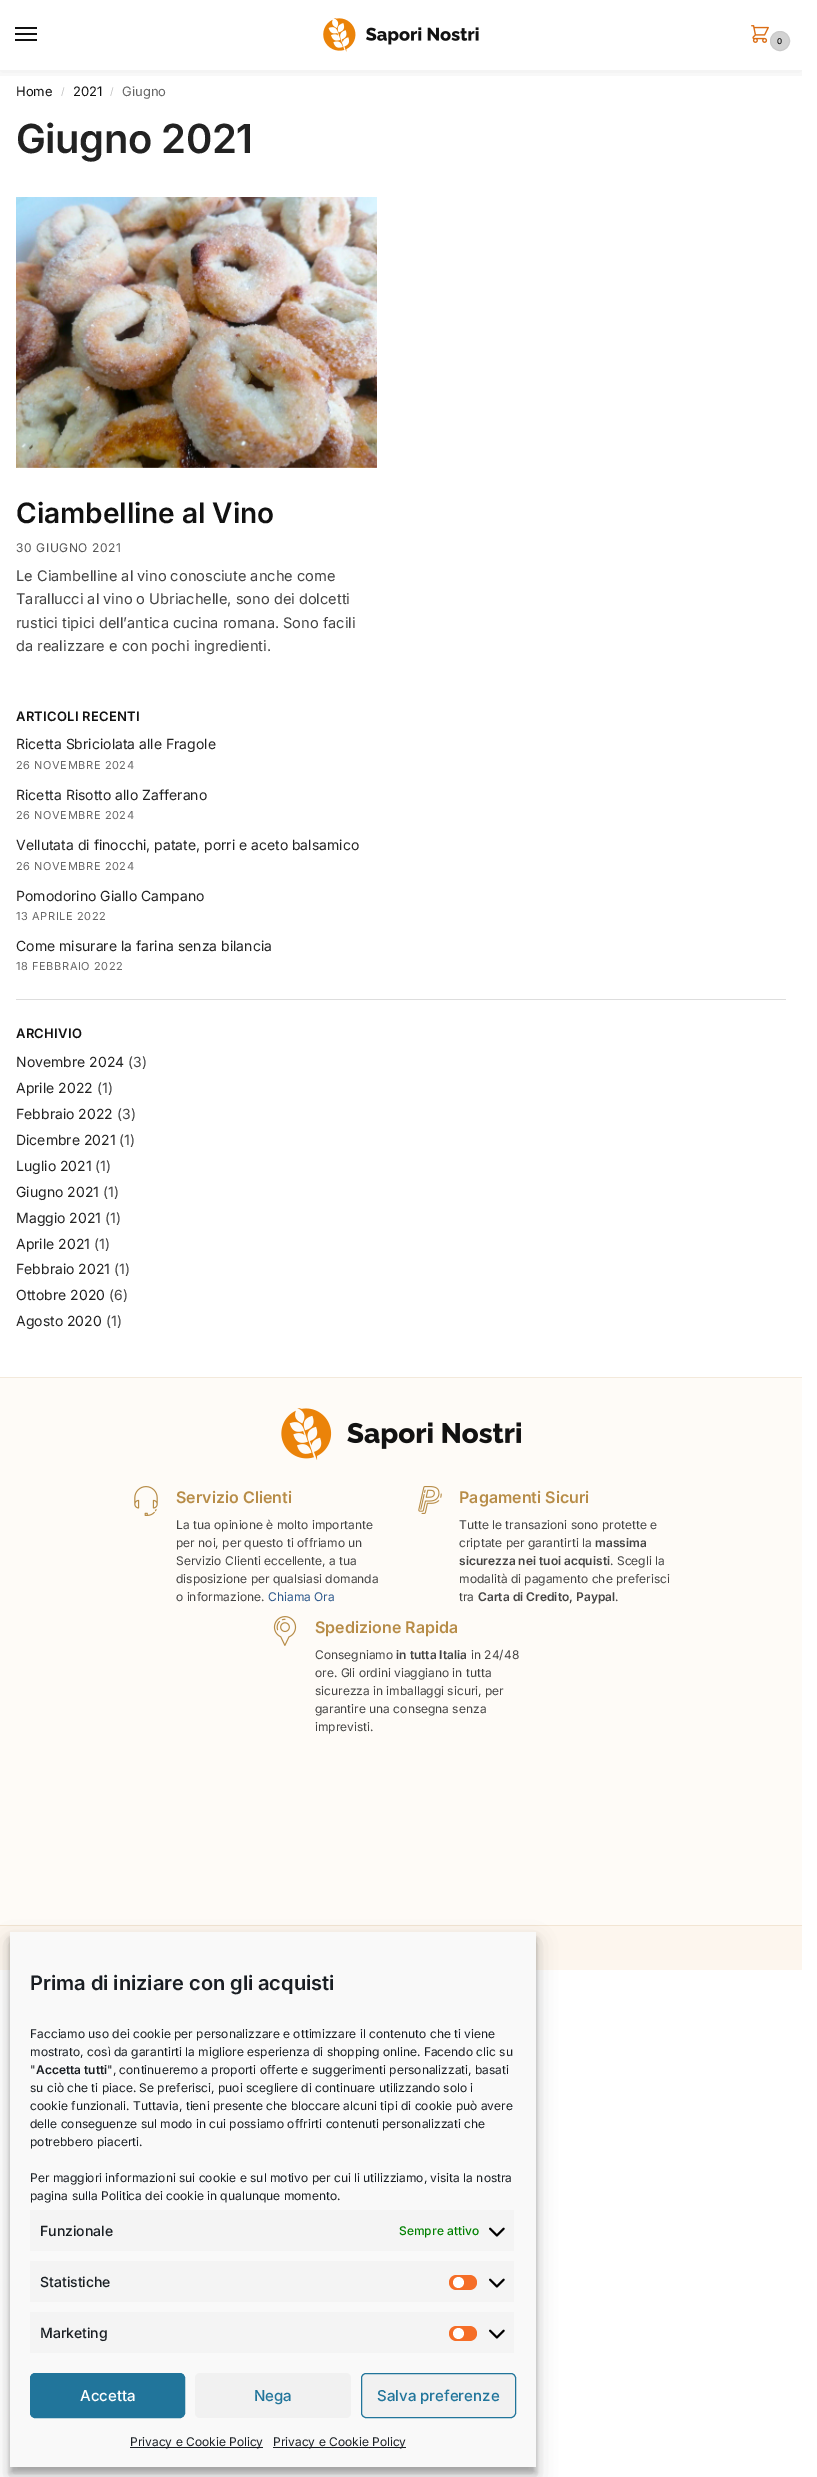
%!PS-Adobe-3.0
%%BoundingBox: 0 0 817 2477
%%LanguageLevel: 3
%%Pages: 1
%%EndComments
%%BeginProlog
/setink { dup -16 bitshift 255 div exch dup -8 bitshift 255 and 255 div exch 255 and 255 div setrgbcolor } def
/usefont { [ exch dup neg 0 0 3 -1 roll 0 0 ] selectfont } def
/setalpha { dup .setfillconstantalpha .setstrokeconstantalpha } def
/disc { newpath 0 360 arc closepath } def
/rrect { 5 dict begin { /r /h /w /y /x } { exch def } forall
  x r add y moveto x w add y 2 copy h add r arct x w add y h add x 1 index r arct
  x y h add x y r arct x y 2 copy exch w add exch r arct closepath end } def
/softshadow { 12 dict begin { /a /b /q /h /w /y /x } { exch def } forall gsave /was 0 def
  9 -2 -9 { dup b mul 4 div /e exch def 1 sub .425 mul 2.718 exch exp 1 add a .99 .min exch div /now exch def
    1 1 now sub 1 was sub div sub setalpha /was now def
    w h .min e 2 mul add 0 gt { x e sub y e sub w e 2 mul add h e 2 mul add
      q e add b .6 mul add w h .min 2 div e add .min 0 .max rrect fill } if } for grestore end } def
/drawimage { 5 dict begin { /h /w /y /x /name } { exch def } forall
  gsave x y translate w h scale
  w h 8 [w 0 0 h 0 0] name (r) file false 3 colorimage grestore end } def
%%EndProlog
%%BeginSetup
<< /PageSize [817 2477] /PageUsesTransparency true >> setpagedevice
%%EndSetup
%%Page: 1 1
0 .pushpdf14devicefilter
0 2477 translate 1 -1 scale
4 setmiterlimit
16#FFFFFF setink
0 0 817 2477 rectfill
gsave
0 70 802 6 rectclip
16#000000 setink
0 1 802 70 0 7.5 0.08 softshadow
grestore
[
    [15 27 22 2 16#111111]
    [15 33 22 2 16#111111]
    [15 39 22 2 16#111111]
] { aload pop setink rectfill } forall
(img1.raw) 323 18 156 34 drawimage
(img2.raw) 751 25 18 18 drawimage
16#D2D2D2 setink
780 41 9.5 disc gsave fill grestore
16#CACACA setink
stroke
/Inter-Medium 8 usefont
16#000000 setink
777 44 moveto (0) show
16#FFFFFF setink
802 0 9 76 rectfill
/Inter-Regular 13 usefont
16#111111 setink
16 96 moveto (Home) show
/Inter-Regular 10 usefont
16#C2C2C2 setink
61 95 moveto (/) show
/Inter-Regular 13 usefont
16#111111 setink
73 96 moveto (2021) show
/Inter-Regular 10 usefont
16#C2C2C2 setink
110 95 moveto (/) show
/Inter-Regular 13 usefont
16#666666 setink
122 96 moveto (Giugno) show
/Inter-SemiBold 40 usefont
16#222222 setink
16 153 moveto -0.5 0 (Giugno 2021) ashow
(img3.raw) 16 197 361 271 drawimage
/Inter-SemiBold 28 usefont
16#111111 setink
16 523 moveto (Ciambelline al Vino) show
/Inter-Regular 12 usefont
16#555555 setink
16 552 moveto 0.6 0 (30 GIUGNO 2021) ashow
/Inter-Regular 14.6 usefont
16#444444 setink
[
    [(Le Ciambelline al vino conosciute anche come) 16 581]
    [(Tarallucci al vino o Ubriachelle, sono dei dolcetti) 16 604]
    [(rustici tipici dell’antica cucina romana. Sono facili) 16 628]
    [(da realizzare e con pochi ingredienti.) 16 651]
] { aload pop moveto show } forall
16#DDDDDD setink
16 999 770 1 rectfill
/Inter-SemiBold 13 usefont
16#111111 setink
16 721 moveto 0.25 0 (ARTICOLI RECENTI) ashow
/Inter-Regular 14 usefont
16#222222 setink
16 749 moveto (Ricetta Sbriciolata alle Fragole) show
/Inter-Regular 11 usefont
16#666666 setink
16 769 moveto 0.6 0 (26 NOVEMBRE 2024) ashow
/Inter-Regular 14 usefont
16#222222 setink
16 800 moveto (Ricetta Risotto allo Zafferano) show
/Inter-Regular 11 usefont
16#666666 setink
16 819 moveto 0.6 0 (26 NOVEMBRE 2024) ashow
/Inter-Regular 14 usefont
16#222222 setink
16 850 moveto (Vellutata di finocchi, patate, porri e aceto balsamico) show
/Inter-Regular 11 usefont
16#666666 setink
16 870 moveto 0.6 0 (26 NOVEMBRE 2024) ashow
/Inter-Regular 14 usefont
16#222222 setink
16 901 moveto (Pomodorino Giallo Campano) show
/Inter-Regular 11 usefont
16#666666 setink
16 920 moveto 0.6 0 (13 APRILE 2022) ashow
/Inter-Regular 14 usefont
16#222222 setink
16 951 moveto (Come misurare la farina senza bilancia) show
/Inter-Regular 11 usefont
16#666666 setink
16 970 moveto 0.6 0 (18 FEBBRAIO 2022) ashow
/Inter-SemiBold 13 usefont
16#111111 setink
16 1038 moveto 0.25 0 (ARCHIVIO) ashow
/Inter-Regular 14 usefont
16#222222 setink
16 1067 moveto (Novembre 2024) show
16#444444 setink
128 1067 moveto (\(3\)) show
16#222222 setink
16 1093 moveto (Aprile 2022) show
16#444444 setink
97 1093 moveto (\(1\)) show
16#222222 setink
16 1119 moveto (Febbraio 2022) show
16#444444 setink
117 1119 moveto (\(3\)) show
16#222222 setink
16 1145 moveto (Dicembre 2021) show
16#444444 setink
119 1145 moveto (\(1\)) show
16#222222 setink
16 1171 moveto (Luglio 2021) show
16#444444 setink
95 1171 moveto (\(1\)) show
16#222222 setink
16 1197 moveto (Giugno 2021) show
16#444444 setink
103 1197 moveto (\(1\)) show
16#222222 setink
16 1223 moveto (Maggio 2021) show
16#444444 setink
105 1223 moveto (\(1\)) show
16#222222 setink
16 1249 moveto (Aprile 2021) show
16#444444 setink
94 1249 moveto (\(1\)) show
16#222222 setink
16 1274 moveto (Febbraio 2021) show
16#444444 setink
114 1274 moveto (\(1\)) show
16#222222 setink
16 1300 moveto (Ottobre 2020) show
16#444444 setink
109 1300 moveto (\(6\)) show
16#222222 setink
16 1326 moveto (Agosto 2020) show
16#444444 setink
106 1326 moveto (\(1\)) show
16#FEFBF7 setink
0 1378 802 547 rectfill
16#F3E9DB setink
0 1377 802 1 rectfill
(img4.raw) 281 1408 240 52 drawimage
(img5.raw) 134 1486 24 30 drawimage
/Inter-SemiBold 16 usefont
16#B78C47 setink
176 1503 moveto (Servizio Clienti) show
/Inter-Regular 12 usefont
16#444444 setink
[
    [(La tua opinione è molto importante) 176 1529]
    [(per noi, per questo ti offriamo un) 176 1547]
    [(Servizio Clienti eccellente, a tua) 176 1565]
    [(disposizione per qualsiasi domanda) 176 1583]
    [(o informazione.) 176 1601]
] { aload pop moveto show } forall
16#2C578B setink
268 1601 moveto (Chiama Ora) show
(img6.raw) 418 1486 24 28 drawimage
/Inter-SemiBold 16 usefont
16#B78C47 setink
459 1503 moveto (Pagamenti Sicuri) show
/Inter-Regular 12 usefont
16#444444 setink
459 1529 moveto (Tutte le transazioni sono protette e) show
459 1547 moveto (criptate per garantirti la) show
/Inter-SemiBold 12 usefont
595 1547 moveto (massima) show
459 1565 moveto (sicurezza nei tuoi acquisti) show
/Inter-Regular 12 usefont
[
    [(. Scegli la) 610 1565]
    [(modalità di pagamento che preferisci) 459 1583]
    [(tra) 459 1601]
] { aload pop moveto show } forall
/Inter-SemiBold 12 usefont
478 1601 moveto (Carta di Credito, Paypal) show
/Inter-Regular 12 usefont
615 1601 moveto (.) show
(img7.raw) 273 1616 24 30 drawimage
/Inter-SemiBold 16 usefont
16#B78C47 setink
315 1633 moveto (Spedizione Rapida) show
/Inter-Regular 12 usefont
16#444444 setink
315 1659 moveto (Consegniamo) show
/Inter-SemiBold 12 usefont
396 1659 moveto (in tutta Italia) show
/Inter-Regular 12 usefont
[
    [(in 24/48) 471 1659]
    [(ore. Gli ordini viaggiano in tutta) 315 1677]
    [(sicurezza in imballaggi sicuri, per) 315 1695]
    [(garantire una consegna senza) 315 1713]
    [(imprevisti.) 315 1731]
] { aload pop moveto show } forall
16#FDF6EE setink
0 1926 802 44 rectfill
16#F2E5D3 setink
0 1925 802 1 rectfill
16#000000 setink
10 1938 526 535 0 3 0.23 softshadow
10 1942 526 535 0 10 0.19 softshadow
16#F9F9F9 setink
10 1932 526 535 rectfill
/Inter-SemiBold 20 usefont
16#191E23 setink
30 1990 moveto (Prima di iniziare con gli acquisti) show
/Inter-Regular 12 usefont
[
    [(Facciamo uso dei cookie per personalizzare e ottimizzare il contenuto che ti viene) 30 2038]
    [(mostrato, così da garantirti la migliore esperienza di shopping online. Facendo clic su) 30 2056]
    [(") 30 2074]
] { aload pop moveto show } forall
/Inter-SemiBold 12 usefont
36 2074 moveto (Accetta tutti) show
/Inter-Regular 12 usefont
[
    [(", continueremo a proporti offerte e suggerimenti personalizzati, basati) 107 2074]
    [(su ciò che ti piace. Se preferisci, puoi scegliere di continuare utilizzando solo i) 30 2092]
    [(cookie funzionali. Tuttavia, tieni presente che bloccare alcuni tipi di cookie può avere) 30 2110]
    [(delle conseguenze sul modo in cui possiamo offrirti contenuti personalizzati che) 30 2128]
    [(potrebbero piacerti.) 30 2146]
    [(Per maggiori informazioni sui cookie e sul motivo per cui li utilizziamo, visita la nostra) 30 2182]
    [(pagina sulla Politica dei cookie in qualunque momento.) 30 2200]
] { aload pop moveto show } forall
16#F4F4F4 setink
30 2210 484 41 rectfill
/Inter-Medium 14 usefont
16#191E23 setink
40 2236 moveto (Funzionale) show
/Inter-Medium 12 usefont
16#008000 setink
399 2235 moveto (Sempre attivo) show
(img8.raw) 489 2227 16 10 drawimage
16#F4F4F4 setink
30 2261 484 41 rectfill
/Inter-Medium 14 usefont
16#191E23 setink
40 2287 moveto (Statistiche) show
16#F56E28 setink
449 2275 28 15 7.5 rrect fill
16#FFFFFF setink
458.5 2282.5 5.5 disc fill
(img8.raw) 489 2278 16 10 drawimage
16#F4F4F4 setink
30 2312 484 41 rectfill
16#191E23 setink
40 2338 moveto (Marketing) show
16#F56E28 setink
449 2326 28 15 7.5 rrect fill
16#FFFFFF setink
458.5 2333.5 5.5 disc fill
(img8.raw) 489 2329 16 10 drawimage
16#21759B setink
30.5 2373.5 154 44 4.5 rrect gsave fill grestore
stroke
/Inter-Medium 15 usefont
16#FFFFFF setink
80 2401 moveto (Accetta) show
16#F1F1F1 setink
195 2373 156 45 5 rrect fill
16#21759B setink
254 2401 moveto (Nega) show
16#F1F1F1 setink
361.5 2373.5 154 44 4.5 rrect gsave fill grestore
16#21759B setink
stroke
377 2401 moveto (Salva preferenze) show
16#191E23 setink
130 2447 133 1 rectfill
/Inter-Regular 12 usefont
130 2446 moveto (Privacy e Cookie Policy) show
273 2447 133 1 rectfill
273 2446 moveto (Privacy e Cookie Policy) show
.poppdf14devicefilter showpage
%%EOF
